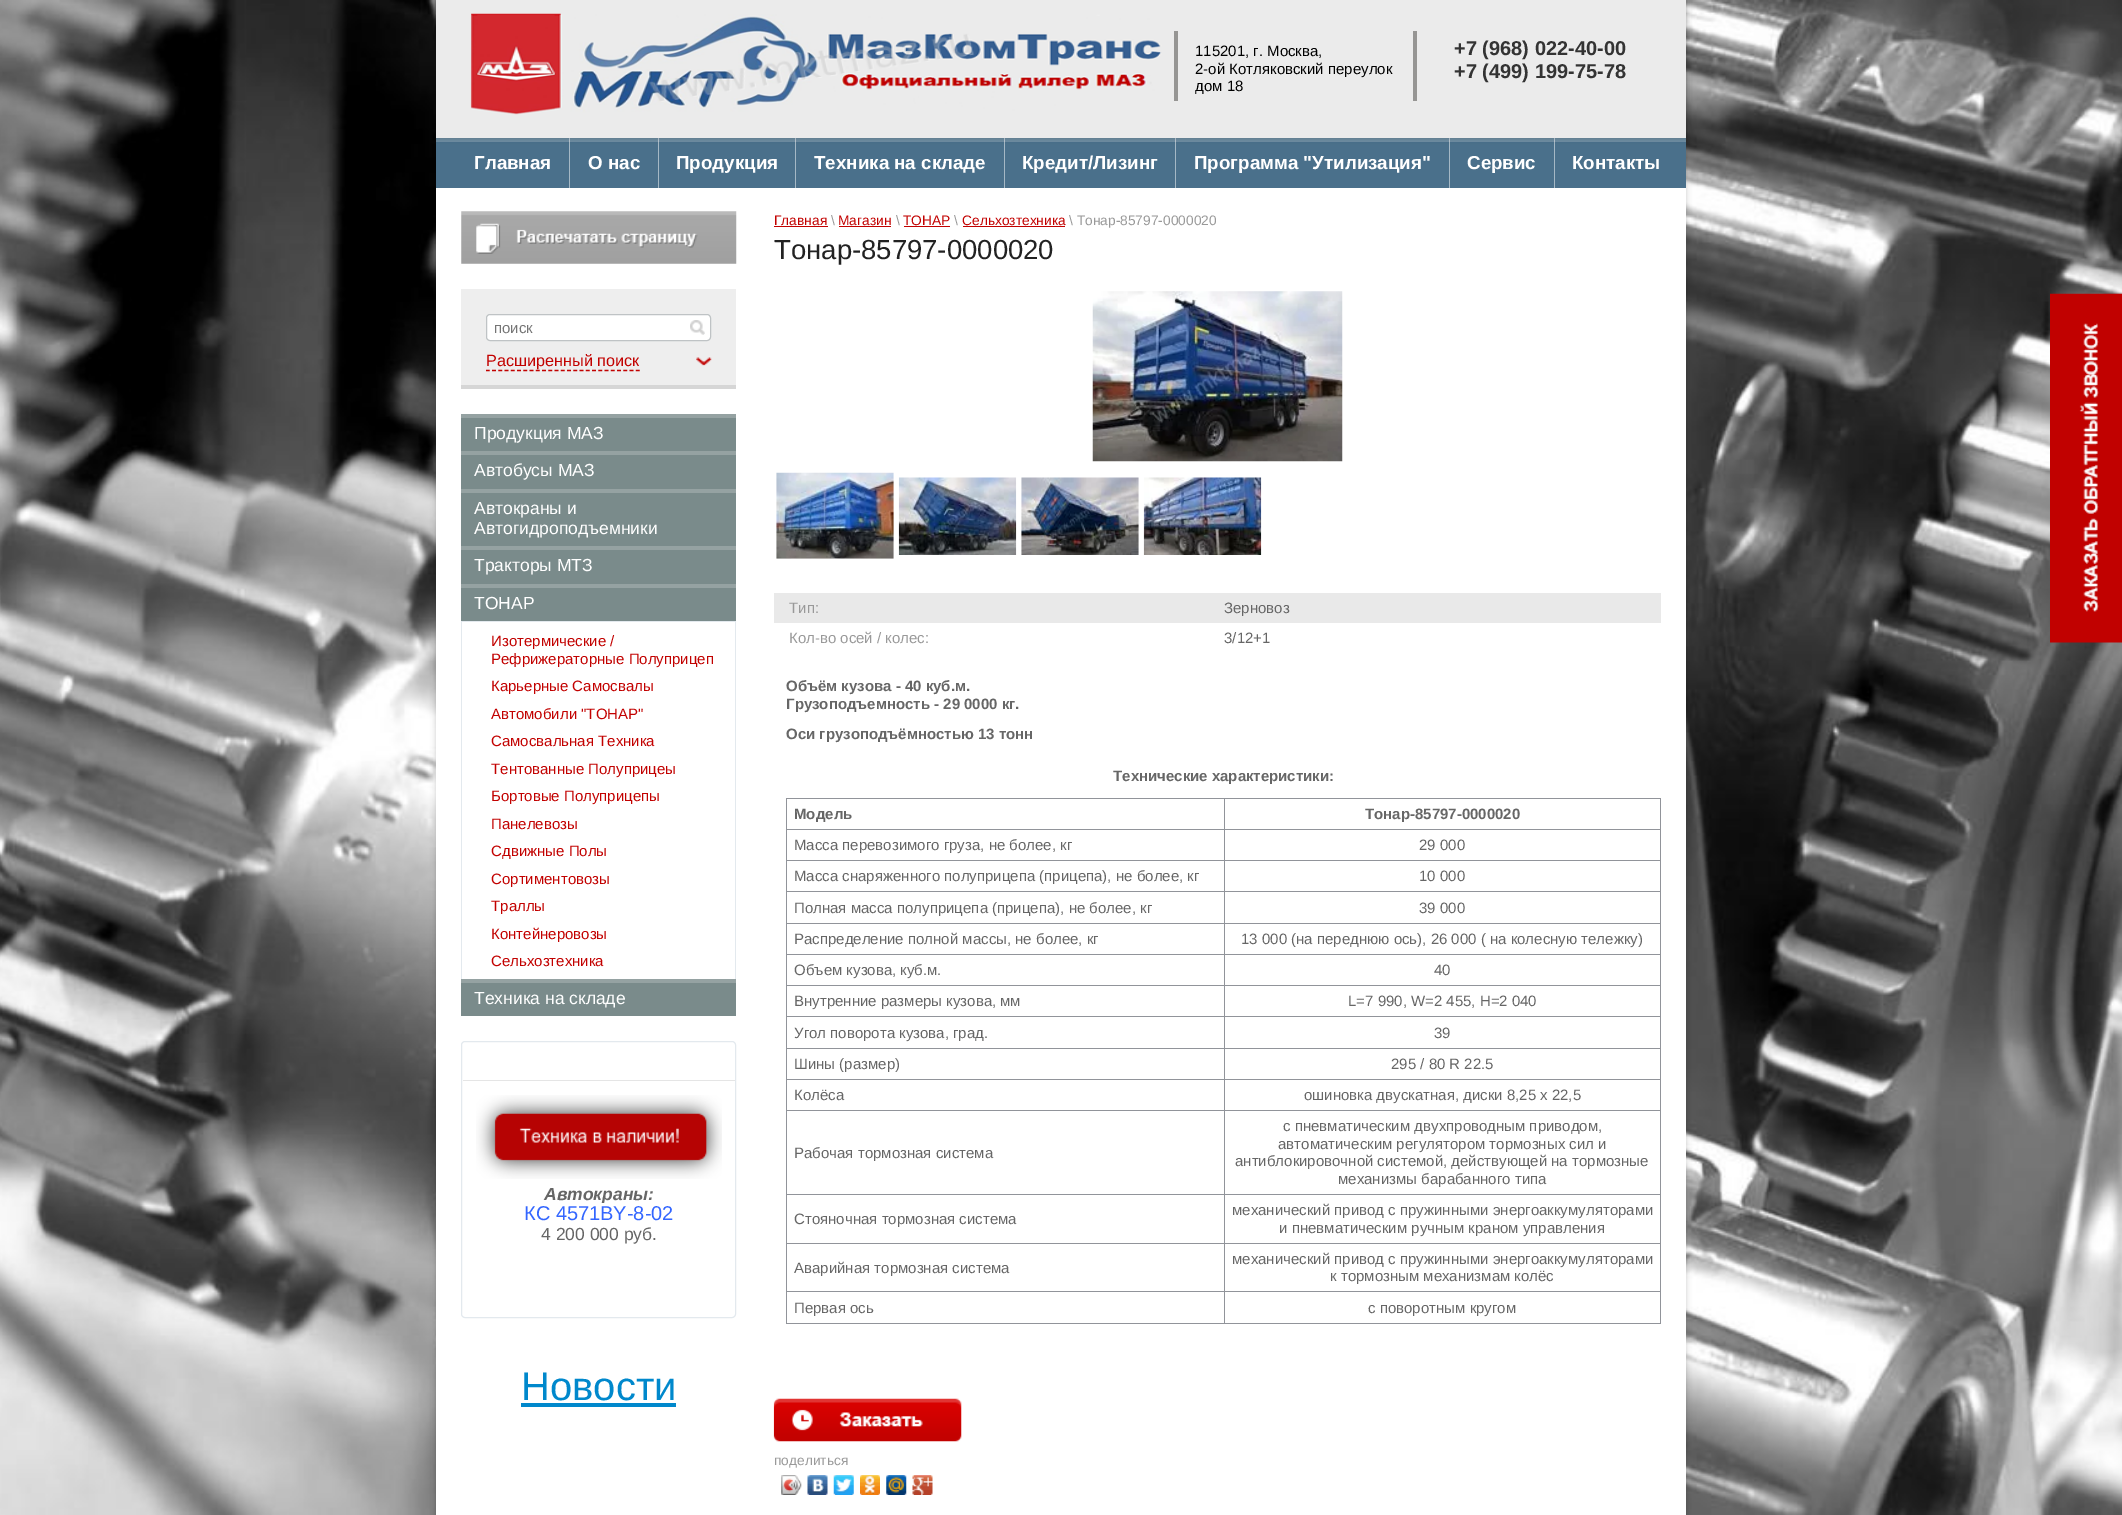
%!PS-Adobe-3.0
%%BoundingBox: 0 0 2122 1515
%%LanguageLevel: 3
%%Pages: 1
%%EndComments
%%BeginProlog
/setink { dup -16 bitshift 255 div exch dup -8 bitshift 255 and 255 div exch 255 and 255 div setrgbcolor } def
/usefont { [ exch dup neg 0 0 3 -1 roll 0 0 ] selectfont } def
/setalpha { dup .setfillconstantalpha .setstrokeconstantalpha } def
/rrect { 5 dict begin { /r /h /w /y /x } { exch def } forall
  x r add y moveto x w add y 2 copy h add r arct x w add y h add x 1 index r arct
  x y h add x y r arct x y 2 copy exch w add exch r arct closepath end } def
/softshadow { 12 dict begin { /a /b /q /h /w /y /x } { exch def } forall gsave /was 0 def
  9 -2 -9 { dup b mul 4 div /e exch def 1 sub .425 mul 2.718 exch exp 1 add a .99 .min exch div /now exch def
    1 1 now sub 1 was sub div sub setalpha /was now def
    w h .min e 2 mul add 0 gt { x e sub y e sub w e 2 mul add h e 2 mul add
      q e add b .6 mul add w h .min 2 div e add .min 0 .max rrect fill } if } for grestore end } def
/drawimage { 5 dict begin { /h /w /y /x /name } { exch def } forall
  gsave x y translate w h scale
  w h 8 [w 0 0 h 0 0] name (r) file false 3 colorimage grestore end } def
%%EndProlog
%%BeginSetup
<< /PageSize [2122 1515] /PageUsesTransparency true >> setpagedevice
%%EndSetup
%%Page: 1 1
0 .pushpdf14devicefilter
0 1515 translate 1 -1 scale
4 setmiterlimit
16#FFFFFF setink
0 0 2122 1515 rectfill
(img1.raw) 0 0 2122 1515 drawimage
16#000000 setink
436 1 1250 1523 0 3 0.2 softshadow
[
    [436 188 1250 1327 16#FFFFFF]
    [436 142 1250 46 16#4A708B]
    [436 138 1250 4 16#6E8DA2]
] { aload pop setink rectfill } forall
0.5 setalpha
[
    [569 138 1 50 16#FFFFFF]
    [658 138 1 50 16#FFFFFF]
    [795 138 1 50 16#FFFFFF]
    [1004 138 1 50 16#FFFFFF]
    [1175 138 1 50 16#FFFFFF]
    [1449 138 1 50 16#FFFFFF]
    [1554 138 1 50 16#FFFFFF]
] { aload pop setink rectfill } forall
1 setalpha
16#000000 setink
436 0 1250 138 0 3 0.2 softshadow
16#EBEBEB setink
436 0 1250 138 rectfill
(img2.raw) 470 13 692 102 drawimage
16#969593 setink
1174 31 4 70 rectfill
/LiberationSans-Regular 15 usefont
16#000000 setink
[
    [(115201, г. Москва,) 1195 56]
    [(2-ой Котляковский переулок) 1195 74]
    [(дом 18) 1195 91]
] { aload pop moveto show } forall
16#969593 setink
1413 31 4 70 rectfill
/LiberationSans-Bold 20 usefont
16#333333 setink
1454 55 moveto (+7 \(968\) 022-40-00) show
1454 78 moveto (+7 \(499\) 199-75-78) show
/LiberationSans-Bold 18.75 usefont
16#FFFFFF setink
[
    [(Главная) 474 169]
    [(О нас) 588 169]
    [(Продукция) 676 169]
    [(Техника на складе) 814 169]
    [(Кредит/Лизинг) 1022 169]
    [(Программа "Утилизация") 1194 169]
    [(Сервис) 1467 169]
    [(Контакты) 1572 169]
] { aload pop moveto show } forall
(img3.raw) 461 211 276 53 drawimage
16#EEEEEE setink
461 289 275 96 rectfill
16#D6D6D6 setink
461 385 275 4 rectfill
16#FFFFFF setink
486.5 314.5 224 26 3.5 rrect gsave fill grestore
16#BFC3C5 setink
stroke
/LiberationSans-Regular 15 usefont
16#757575 setink
494 333 moveto (поиск) show
(img4.raw) 690 320 15 15 drawimage
(img5.raw) 696 357 16 9 drawimage
16#C10100 setink
1.2 setlinewidth
[3.75 2.5] 0 setdash
486 370.5 moveto 640 370.5 lineto stroke
/LiberationSans-Regular 16.25 usefont
16#C20100 setink
486 366 moveto (Расширенный поиск) show
16#7A8B8B setink
461 418 275 33 rectfill
16#95A2A2 setink
461 414 275 4 rectfill
/LiberationSans-Regular 17.5 usefont
16#FFFFFF setink
474 439 moveto (Продукция МАЗ) show
16#7A8B8B setink
461 455 275 34 rectfill
16#95A2A2 setink
461 451 275 4 rectfill
16#FFFFFF setink
474 476 moveto (Автобусы МАЗ) show
16#7A8B8B setink
461 493 275 53 rectfill
16#95A2A2 setink
461 489 275 4 rectfill
16#FFFFFF setink
474 514 moveto (Автокраны и) show
474 534 moveto (Автогидроподъемники) show
16#7A8B8B setink
461 550 275 34 rectfill
16#95A2A2 setink
461 546 275 4 rectfill
16#FFFFFF setink
474 571 moveto (Тракторы МТЗ) show
16#7A8B8B setink
461 588 275 33 rectfill
16#95A2A2 setink
461 584 275 4 rectfill
16#FFFFFF setink
474 609 moveto (ТОНАР) show
[
    [461 621 275 1 16#E3E9EE]
    [735 621 1 358 16#E3E9EE]
    [461 621 1 358 16#E3E9EE]
] { aload pop setink rectfill } forall
/LiberationSans-Regular 15 usefont
16#C20100 setink
[
    [(Изотермические /) 491 646]
    [(Рефрижераторные Полуприцеп) 491 664]
    [(Карьерные Самосвалы) 491 691]
    [(Автомобили "ТОНАР") 491 719]
    [(Самосвальная Техника) 491 746]
    [(Тентованные Полуприцеы) 491 774]
    [(Бортовые Полуприцепы) 491 801]
    [(Панелевозы) 491 829]
    [(Сдвижные Полы) 491 856]
    [(Сортиментовозы) 491 884]
    [(Траллы) 491 911]
    [(Контейнеровозы) 491 939]
    [(Сельхозтехника) 491 966]
] { aload pop moveto show } forall
16#7A8B8B setink
461 983 275 33 rectfill
16#95A2A2 setink
461 979 275 4 rectfill
/LiberationSans-Regular 17.5 usefont
16#FFFFFF setink
474 1004 moveto (Техника на складе) show
16#E3E9EE setink
1 setlinewidth
[] 0 setdash
461.5 1041.5 274 276 3.5 rrect stroke
16#E5E5E5 setink
463 1080 272 1 rectfill
(img6.raw) 476 1095 246 84 drawimage
/LiberationSans-BoldItalic 17.5 usefont
16#666666 setink
544 1200 moveto (Автокраны:) show
/LiberationSans-Regular 20 usefont
16#3366FF setink
524 1220 moveto (КС 4571BY-8-02) show
16#FFFFFF setink
601 1203 4 1 rectfill
/LiberationSans-Regular 17.5 usefont
16#666666 setink
541 1240 moveto (4 200 000 руб.) show
/LiberationSans-Regular 40 usefont
16#0088CC setink
521 1400 moveto (Новости) show
521 1403 155 4 rectfill
/LiberationSans-Regular 13.75 usefont
16#C20100 setink
774 225 moveto (Главная) show
774 226 54 1 rectfill
16#999999 setink
831 225 moveto (\\) show
16#C20100 setink
838 225 moveto (Магазин) show
839 226 52 1 rectfill
16#999999 setink
896 225 moveto (\\) show
16#C20100 setink
903 225 moveto (ТОНАР) show
904 226 46 1 rectfill
16#999999 setink
954 225 moveto (\\) show
16#C20100 setink
962 225 moveto (Сельхозтехника) show
963 226 102 1 rectfill
16#999999 setink
1069 225 moveto (\\ Тонар-85797-0000020) show
/LiberationSans-Regular 27.5 usefont
16#222222 setink
774 259 moveto (Тонар-85797-0000020) show
(img7.raw) 1092 291 251 171 drawimage
(img8.raw) 776 472 118 87 drawimage
(img9.raw) 898 477 119 78 drawimage
(img10.raw) 1021 477 118 78 drawimage
(img11.raw) 1143 477 119 78 drawimage
16#E9E9E9 setink
774 593 887 30 rectfill
/LiberationSans-Regular 15 usefont
16#999999 setink
789 613 moveto (Тип:) show
16#666666 setink
1224 613 moveto (Зерновоз) show
16#999999 setink
789 643 moveto (Кол-во осей / колес:) show
16#666666 setink
1224 643 moveto (3/12+1) show
/LiberationSans-Bold 15 usefont
[
    [(Объём кузова - 40 куб.м.) 786 691]
    [(Грузоподъемность - 29 0000 кг.) 786 709]
    [(Оси грузоподъёмностью 13 тонн) 786 739]
    [(Технические характеристики:) 1113 781]
] { aload pop moveto show } forall
[
    [1224 798 437 1 16#91949A]
    [1224 829 437 1 16#91949A]
    [1224 860 437 1 16#91949A]
    [1224 891 437 1 16#91949A]
    [1224 923 437 1 16#91949A]
    [1224 954 437 1 16#91949A]
    [1224 985 437 1 16#91949A]
    [1224 1016 437 1 16#91949A]
    [1224 1048 437 1 16#91949A]
    [1224 1079 437 1 16#91949A]
    [1224 1110 437 1 16#91949A]
    [1224 1194 437 1 16#91949A]
    [1224 1243 437 1 16#91949A]
    [1224 1291 437 1 16#91949A]
    [1660 1291 1 33 16#91949A]
    [1224 1323 437 1 16#91949A]
    [1224 1291 1 33 16#91949A]
    [786 1291 439 1 16#91949A]
    [1224 1243 1 50 16#91949A]
    [786 1243 439 1 16#91949A]
    [1224 1194 1 50 16#91949A]
    [786 1194 439 1 16#91949A]
    [1224 1110 1 85 16#91949A]
    [786 1110 439 1 16#91949A]
    [1224 1079 1 32 16#91949A]
    [786 1079 439 1 16#91949A]
    [1224 1048 1 32 16#91949A]
    [786 1048 439 1 16#91949A]
    [1224 1016 1 33 16#91949A]
    [786 1016 439 1 16#91949A]
    [1224 985 1 33 16#91949A]
    [786 985 439 1 16#91949A]
    [1224 954 1 32 16#91949A]
    [786 954 439 1 16#91949A]
    [1224 923 1 32 16#91949A]
    [786 923 439 1 16#91949A]
    [1224 891 1 33 16#91949A]
    [786 891 439 1 16#91949A]
    [1224 860 1 33 16#91949A]
    [786 860 439 1 16#91949A]
    [1224 829 1 32 16#91949A]
    [786 829 439 1 16#91949A]
    [1224 798 1 32 16#91949A]
    [786 798 439 1 16#91949A]
    [786 1323 439 1 16#91949A]
    [786 1291 1 33 16#91949A]
    [786 1243 1 50 16#91949A]
    [786 1194 1 50 16#91949A]
    [786 1110 1 85 16#91949A]
    [786 1079 1 32 16#91949A]
    [786 1048 1 32 16#91949A]
    [786 1016 1 33 16#91949A]
    [786 985 1 33 16#91949A]
    [786 954 1 32 16#91949A]
    [786 923 1 32 16#91949A]
    [786 891 1 33 16#91949A]
    [786 860 1 33 16#91949A]
    [786 829 1 32 16#91949A]
    [786 798 1 32 16#91949A]
] { aload pop setink rectfill } forall
16#666666 setink
794 819 moveto (Модель) show
[
    [1660 1243 1 50 16#91949A]
    [1660 1194 1 50 16#91949A]
    [1660 1110 1 85 16#91949A]
    [1660 1079 1 32 16#91949A]
    [1660 1048 1 32 16#91949A]
    [1660 1016 1 33 16#91949A]
    [1660 985 1 33 16#91949A]
    [1660 954 1 32 16#91949A]
    [1660 923 1 32 16#91949A]
    [1660 891 1 33 16#91949A]
    [1660 860 1 33 16#91949A]
    [1660 829 1 32 16#91949A]
    [1660 798 1 32 16#91949A]
] { aload pop setink rectfill } forall
16#666666 setink
1365 819 moveto (Тонар-85797-0000020) show
/LiberationSans-Regular 15 usefont
[
    [(Масса перевозимого груза, не более, кг) 794 850]
    [(29 000) 1419 850]
    [(Масса снаряженного полуприцепа \(прицепа\), не более, кг) 794 881]
    [(10 000) 1419 881]
    [(Полная масса полуприцепа \(прицепа\), не более, кг) 794 913]
    [(39 000) 1419 913]
    [(Распределение полной массы, не более, кг) 794 944]
    [(13 000 \(на переднюю ось\), 26 000 \( на колесную тележку\)) 1241 944]
    [(Объем кузова, куб.м.) 794 975]
    [(40) 1434 975]
    [(Внутренние размеры кузова, мм) 794 1006]
    [(L=7 990, W=2 455, H=2 040) 1348 1006]
    [(Угол поворота кузова, град.) 794 1038]
    [(39) 1434 1038]
    [(Шины \(размер\)) 794 1069]
    [(295 / 80 R 22.5) 1391 1069]
    [(Колёса) 794 1100]
    [(ошиновка двускатная, диски 8,25 х 22,5) 1304 1100]
    [(Рабочая тормозная система) 794 1158]
    [(с пневматическим двухпроводным приводом,) 1283 1131]
    [(автоматическим регулятором тормозных сил и) 1278 1149]
    [(антиблокировочной системой, действующей на тормозные) 1235 1166]
    [(механизмы барабанного типа) 1338 1184]
    [(Стояночная тормозная система) 794 1224]
    [(механический привод с пружинными энергоаккумуляторами) 1232 1215]
    [(и пневматическим ручным краном управления) 1279 1233]
    [(Аварийная тормозная система) 794 1273]
    [(механический привод с пружинными энергоаккумуляторами) 1232 1264]
    [(к тормозным механизмам колёс) 1330 1281]
    [(Первая ось) 794 1313]
    [(с поворотным кругом) 1368 1313]
] { aload pop moveto show } forall
(img12.raw) 773 1398 189 44 drawimage
/LiberationSans-Regular 13.75 usefont
16#999999 setink
774 1465 moveto (поделиться) show
(img13.raw) 781 1475 21 20 drawimage
(img14.raw) 781 1475 21 20 drawimage
(img15.raw) 807 1475 21 20 drawimage
(img16.raw) 833 1475 21 20 drawimage
(img17.raw) 860 1475 20 20 drawimage
(img18.raw) 886 1475 21 20 drawimage
(img19.raw) 912 1475 21 20 drawimage
(img20.raw) 2050 293 72 350 drawimage
.poppdf14devicefilter showpage
%%EOF
